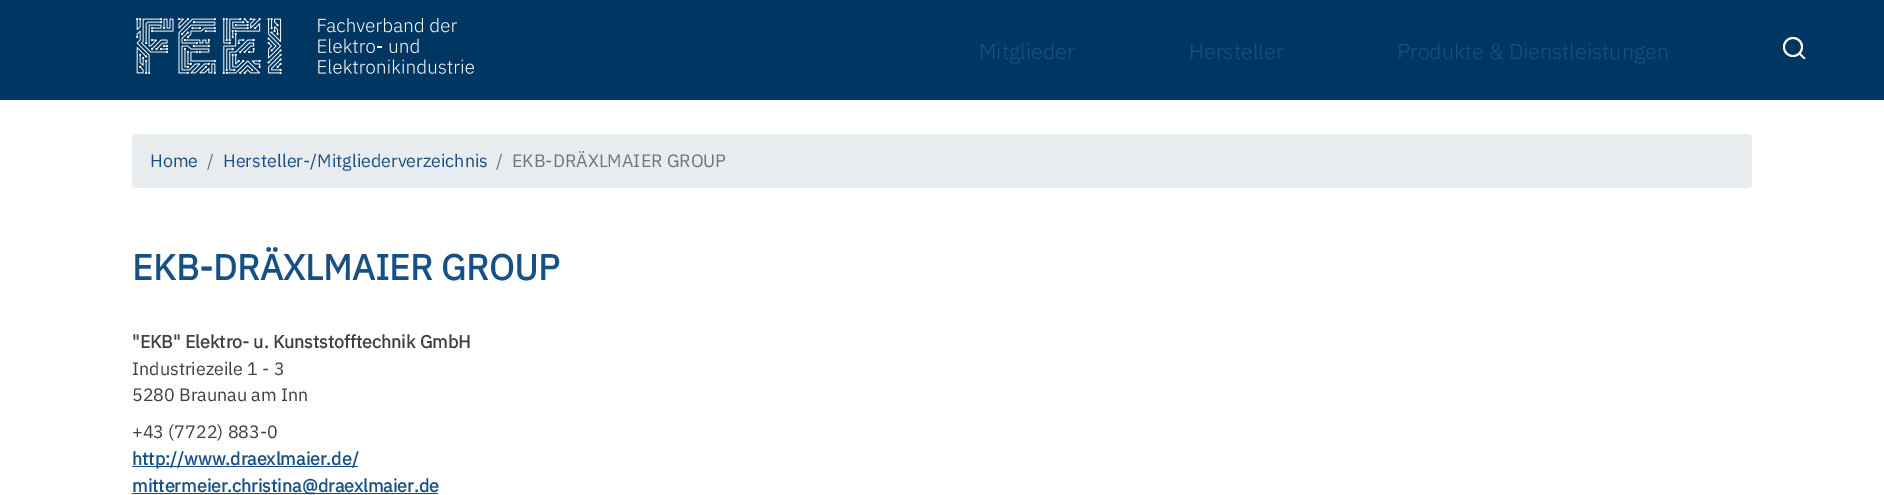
%!PS-Adobe-3.0
%%BoundingBox: 0 0 1884 495
%%LanguageLevel: 3
%%Pages: 1
%%EndComments
%%BeginProlog
/setink { dup -16 bitshift 255 div exch dup -8 bitshift 255 and 255 div exch 255 and 255 div setrgbcolor } def
/usefont { [ exch dup neg 0 0 3 -1 roll 0 0 ] selectfont } def
/rrect { 5 dict begin { /r /h /w /y /x } { exch def } forall
  x r add y moveto x w add y 2 copy h add r arct x w add y h add x 1 index r arct
  x y h add x y r arct x y 2 copy exch w add exch r arct closepath end } def
/drawimage { 5 dict begin { /h /w /y /x /name } { exch def } forall
  gsave x y translate w h scale
  w h 8 [w 0 0 h 0 0] name (r) file false 3 colorimage grestore end } def
%%EndProlog
%%BeginSetup
<< /PageSize [1884 495] >> setpagedevice
%%EndSetup
%%Page: 1 1
0 495 translate 1 -1 scale
4 setmiterlimit
16#FFFFFF setink
0 0 1884 495 rectfill
16#003762 setink
0 0 1884 100 rectfill
(img1.raw) 136 18 338 56 drawimage
/IBMPlexSans-Light 21.5 usefont
16#175085 setink
[
    [(Mitglieder) 979 59]
    [(Hersteller) 1189 59]
    [(Produkte & Dienstleistungen) 1397 59]
] { aload pop moveto show } forall
(img2.raw) 1783 37 23 22 drawimage
16#E9ECEF setink
132 134 1620 54 4 rrect fill
/IBMPlexSans-Regular 17.9 usefont
16#175085 setink
150 167 moveto (Home) show
16#6C757D setink
207 167 moveto (/) show
16#175085 setink
223 167 moveto (Hersteller-/Mitgliederverzeichnis) show
16#6C757D setink
496 167 moveto (/) show
512 167 moveto (EKB-DRÄXLMAIER GROUP) show
/IBMPlexSans-Bold 35.75 usefont
16#175085 setink
132 280 moveto (EKB-DRÄXLMAIER GROUP) show
/IBMPlexSans-Bold 17.9 usefont
16#404040 setink
132 348 moveto ("EKB" Elektro- u. Kunststofftechnik GmbH) show
/IBMPlexSans-Regular 17.9 usefont
[
    [(Industriezeile 1 - 3) 132 375]
    [(5280 Braunau am Inn) 132 401]
    [(+43 \(7722\) 883-0) 132 438]
] { aload pop moveto show } forall
16#175085 setink
132 466 226 1 rectfill
/IBMPlexSans-Bold 17.9 usefont
132 465 moveto (http://www.draexlmaier.de/) show
132 493 306 1 rectfill
132 492 moveto (mittermeier.christina@draexlmaier.de) show
showpage
%%EOF
